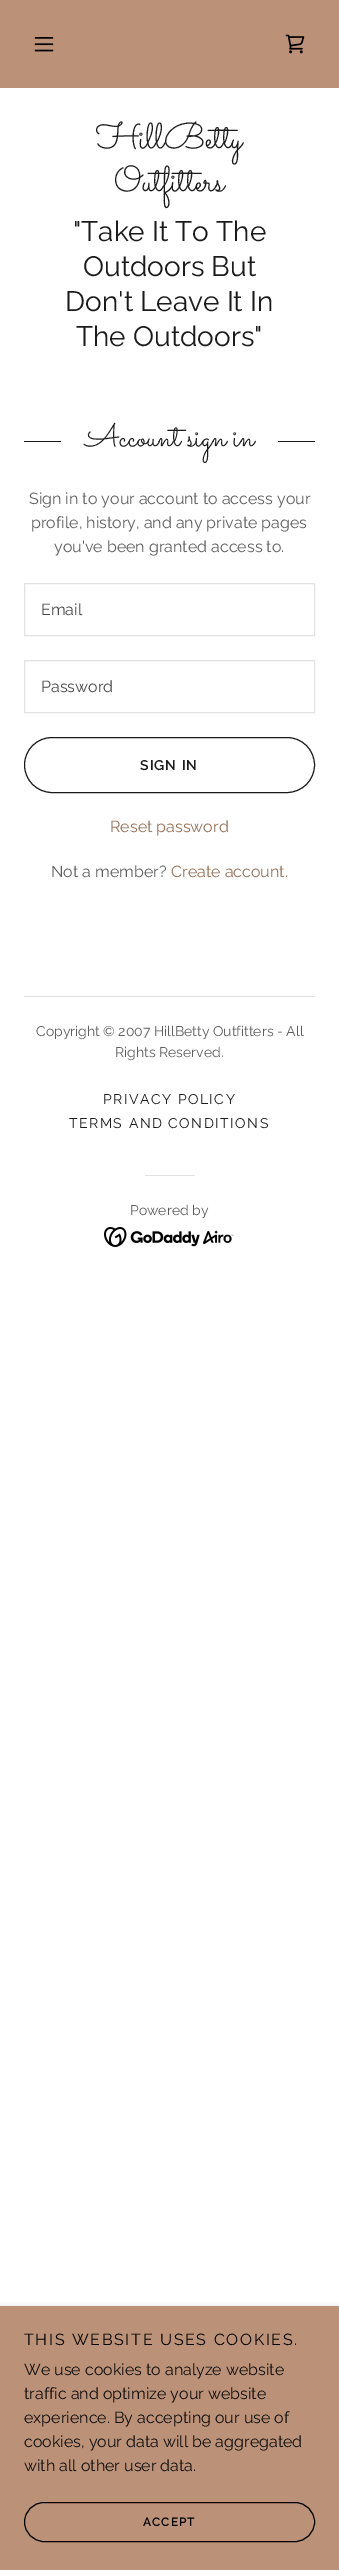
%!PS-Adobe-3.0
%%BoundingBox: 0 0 339 2570
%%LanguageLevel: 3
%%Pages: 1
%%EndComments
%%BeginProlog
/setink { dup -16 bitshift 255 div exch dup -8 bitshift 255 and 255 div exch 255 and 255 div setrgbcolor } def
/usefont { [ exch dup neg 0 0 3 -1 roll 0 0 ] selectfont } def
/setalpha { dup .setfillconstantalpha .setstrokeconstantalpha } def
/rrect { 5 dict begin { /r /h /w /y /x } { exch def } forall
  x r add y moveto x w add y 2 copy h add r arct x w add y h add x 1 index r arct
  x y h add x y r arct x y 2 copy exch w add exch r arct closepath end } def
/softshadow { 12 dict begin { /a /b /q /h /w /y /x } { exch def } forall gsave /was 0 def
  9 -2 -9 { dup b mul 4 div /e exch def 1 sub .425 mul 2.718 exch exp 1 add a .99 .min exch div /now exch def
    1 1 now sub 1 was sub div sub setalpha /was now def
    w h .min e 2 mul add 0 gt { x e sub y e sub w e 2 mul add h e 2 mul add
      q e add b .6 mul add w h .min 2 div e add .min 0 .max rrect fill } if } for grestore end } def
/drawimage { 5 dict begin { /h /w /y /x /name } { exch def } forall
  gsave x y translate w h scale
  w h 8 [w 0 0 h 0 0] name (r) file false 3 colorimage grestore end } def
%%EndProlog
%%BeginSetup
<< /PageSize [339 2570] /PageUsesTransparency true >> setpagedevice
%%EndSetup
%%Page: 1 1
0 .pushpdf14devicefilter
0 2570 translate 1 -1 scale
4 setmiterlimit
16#FFFFFF setink
0 0 339 2570 rectfill
16#BB9278 setink
0 0 339 88 rectfill
(img1.raw) 34 37 20 15 drawimage
(img2.raw) 285 34 20 20 drawimage
/Sacramento-Regular 36 usefont
16#1B1B1B setink
96 148 moveto (HillBetty) show
114 191 moveto (Outfitters) show
/Raleway-Regular 28 usefont
[
    [("Take It To The) 73 241]
    [(Outdoors But) 83 276]
    [(Don't Leave It In) 65 311]
    [(The Outdoors") 76 346]
] { aload pop moveto show } forall
24 441 37 1 rectfill
/Sacramento-Regular 32 usefont
85 446 moveto (Account sign in) show
278 441 37 1 rectfill
/Raleway-Regular 16 usefont
16#5E5E5E setink
[
    [(Sign in to your account to access your) 29 504]
    [(profile, history, and any private pages) 31 528]
    [(you've been granted access to.) 54 552]
] { aload pop moveto show } forall
16#E2E2E2 setink
24.5 583.5 290 52 rectstroke
16#474747 setink
41 615 moveto (Email) show
16#E2E2E2 setink
24.5 660.5 290 52 rectstroke
16#474747 setink
41 692 moveto (Password) show
16#1B1B1B setink
24.5 737.5 290 55 27.5 rrect stroke
/Raleway-SemiBold 14 usefont
140 770 moveto 1 0 (SIGN IN) ashow
/Raleway-Regular 16 usefont
16#946E56 setink
110 832 moveto (Reset password) show
16#5E5E5E setink
51 877 moveto (Not a member?) show
16#946E56 setink
171 877 moveto (Create account.) show
16#E2E2E2 setink
24 996 291 1 rectfill
/Raleway-Regular 14 usefont
16#5E5E5E setink
36 1036 moveto (Copyright © 2007 HillBetty Outfitters - All) show
115 1057 moveto (Rights Reserved.) show
16#1B1B1B setink
103 1104 moveto 1.5 0 (PRIVACY POLICY) ashow
69 1128 moveto 1.5 0 (TERMS AND CONDITIONS) ashow
16#E2E2E2 setink
145 1175 50 1 rectfill
16#5E5E5E setink
130 1215 moveto (Powered by) show
(img3.raw) 104 1227 130 20 drawimage
16#000000 setink
0 2308 339 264 0 3 0.3 softshadow
16#BB9278 setink
0 2306 339 264 rectfill
/Raleway-Regular 16 usefont
16#000000 setink
24 2345 moveto 1.7 0 (THIS WEBSITE USES COOKIES.) ashow
16#0E0D0D setink
[
    [(We use cookies to analyze website) 24 2375]
    [(traffic and optimize your website) 24 2399]
    [(experience. By accepting our use of) 24 2423]
    [(cookies, your data will be aggregated) 24 2447]
    [(with all other user data.) 24 2471]
] { aload pop moveto show } forall
16#000000 setink
24.5 2502.5 290 39 19.5 rrect stroke
/Raleway-SemiBold 12 usefont
143 2526 moveto 1 0 (ACCEPT) ashow
.poppdf14devicefilter showpage
%%EOF
